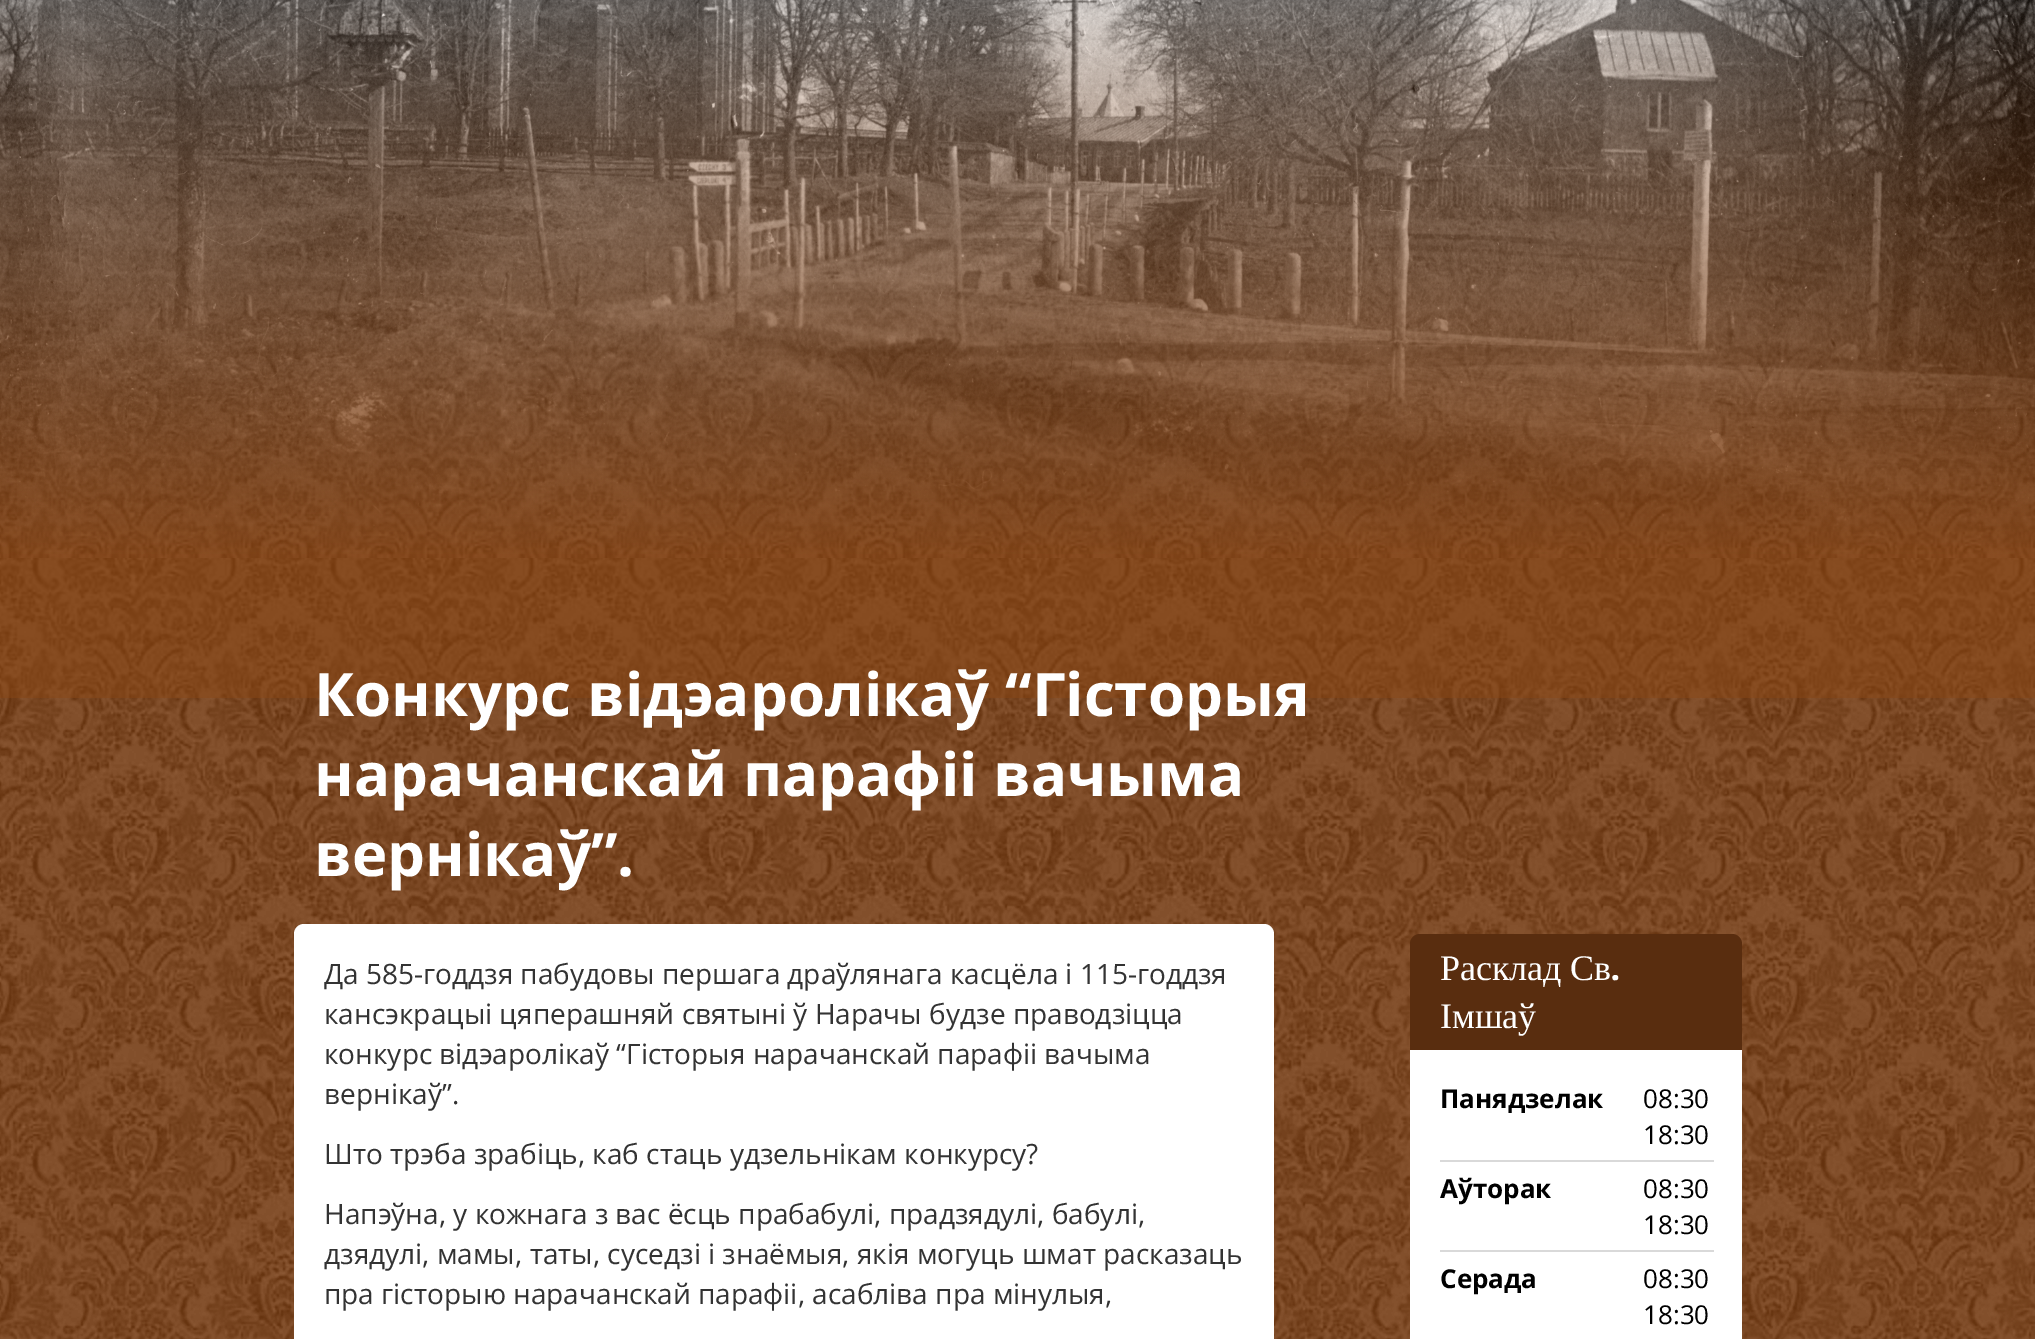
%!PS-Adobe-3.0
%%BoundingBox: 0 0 2035 1339
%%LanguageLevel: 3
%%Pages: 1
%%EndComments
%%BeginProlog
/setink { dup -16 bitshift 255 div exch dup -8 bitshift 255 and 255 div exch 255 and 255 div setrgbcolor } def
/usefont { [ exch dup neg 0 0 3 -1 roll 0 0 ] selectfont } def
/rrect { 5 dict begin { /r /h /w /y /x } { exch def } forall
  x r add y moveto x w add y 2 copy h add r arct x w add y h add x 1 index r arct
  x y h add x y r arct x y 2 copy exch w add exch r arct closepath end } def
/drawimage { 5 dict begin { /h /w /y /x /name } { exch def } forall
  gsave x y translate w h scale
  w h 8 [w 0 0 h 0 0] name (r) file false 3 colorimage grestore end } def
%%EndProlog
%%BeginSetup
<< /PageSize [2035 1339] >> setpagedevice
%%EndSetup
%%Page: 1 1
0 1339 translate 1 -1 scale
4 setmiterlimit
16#8B4513 setink
0 0 2035 1339 rectfill
(img1.raw) 0 698 2035 641 drawimage
(img2.raw) 0 558 2035 781 drawimage
(img3.raw) 0 0 2035 554 drawimage
(img4.raw) 0 0 2035 558 drawimage
/OpenSans-Bold 60 usefont
16#FFFFFF setink
[
    [(Конкурс відэаролікаў “Гісторыя) 314 716]
    [(нарачанскай парафіі вачыма) 314 796]
    [(вернікаў”.) 314 876]
] { aload pop moveto show } forall
294 924 980 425 10 rrect fill
/OpenSans-Regular 28 usefont
16#333333 setink
[
    [(Да 585-годдзя пабудовы першага драўлянага касцёла і 115-годдзя) 324 984]
    [(кансэкрацыі цяперашняй святыні ў Нарачы будзе праводзіцца) 324 1024]
    [(конкурс відэаролікаў “Гісторыя нарачанскай парафіі вачыма) 324 1064]
    [(вернікаў”.) 324 1104]
    [(Што трэба зрабіць, каб стаць удзельнікам конкурсу?) 324 1164]
    [(Напэўна, у кожнага з вас ёсць прабабулі, прадзядулі, бабулі,) 324 1224]
    [(дзядулі, мамы, таты, суседзі і знаёмыя, якія могуць шмат расказаць) 324 1264]
    [(пра гісторыю нарачанскай парафіі, асабліва пра мінулыя,) 324 1304]
] { aload pop moveto show } forall
16#592D0F setink
1420 934 moveto 1732 934 lineto 1737.5 934 1742 938.5 1742 944 curveto 1742 1050 lineto 1410 1050 lineto 1410 944 lineto 1410 938.5 1414.5 934 1420 934 curveto closepath fill
/LiberationSerif-Regular 36 usefont
16#FFFFFF setink
1440 980 moveto -1 0 32 (Расклад Св) widthshow
/PatuaOne-Regular 36 usefont
1611 980 moveto (.) show
/LiberationSerif-Regular 36 usefont
1440 1028 moveto (Імшаў) show
1410 1050 332 289 rectfill
/OpenSans-Bold 26 usefont
16#000000 setink
1440 1108 moveto (Панядзелак) show
16#D9D9D9 setink
1440 1160 274 2 rectfill
/OpenSans-Regular 26 usefont
16#000000 setink
1643 1108 moveto (08:30) show
1643 1144 moveto (18:30) show
/OpenSans-Bold 26 usefont
1440 1198 moveto (Аўторак) show
16#D9D9D9 setink
1440 1250 274 2 rectfill
/OpenSans-Regular 26 usefont
16#000000 setink
1643 1198 moveto (08:30) show
1643 1234 moveto (18:30) show
/OpenSans-Bold 26 usefont
1440 1288 moveto (Серада) show
/OpenSans-Regular 26 usefont
1643 1288 moveto (08:30) show
1643 1324 moveto (18:30) show
showpage
%%EOF
